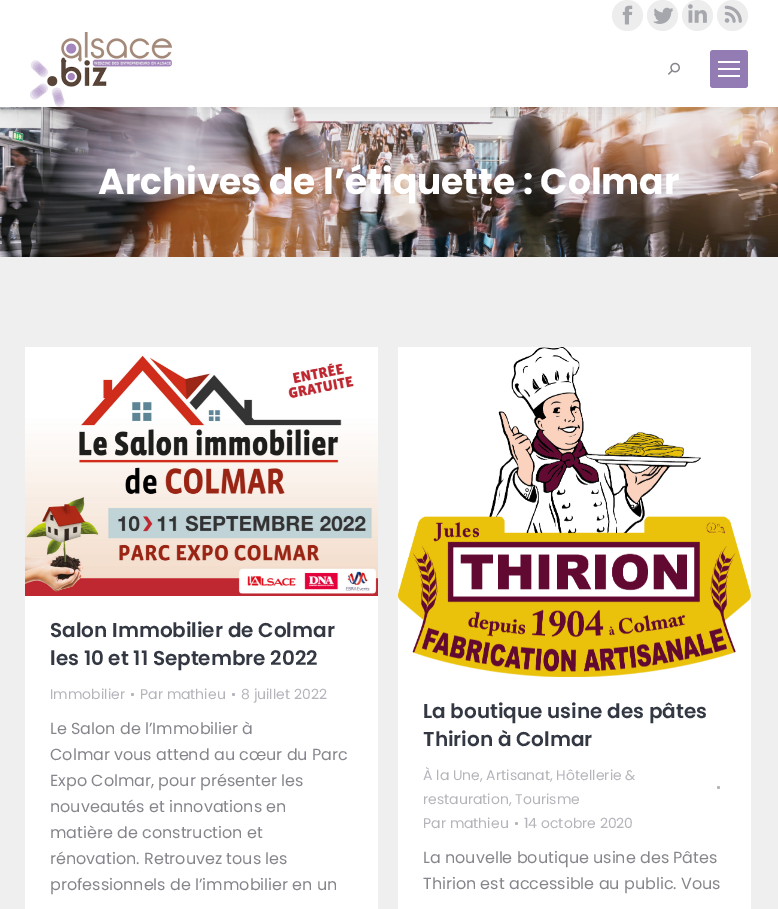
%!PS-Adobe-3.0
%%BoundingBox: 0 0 778 909
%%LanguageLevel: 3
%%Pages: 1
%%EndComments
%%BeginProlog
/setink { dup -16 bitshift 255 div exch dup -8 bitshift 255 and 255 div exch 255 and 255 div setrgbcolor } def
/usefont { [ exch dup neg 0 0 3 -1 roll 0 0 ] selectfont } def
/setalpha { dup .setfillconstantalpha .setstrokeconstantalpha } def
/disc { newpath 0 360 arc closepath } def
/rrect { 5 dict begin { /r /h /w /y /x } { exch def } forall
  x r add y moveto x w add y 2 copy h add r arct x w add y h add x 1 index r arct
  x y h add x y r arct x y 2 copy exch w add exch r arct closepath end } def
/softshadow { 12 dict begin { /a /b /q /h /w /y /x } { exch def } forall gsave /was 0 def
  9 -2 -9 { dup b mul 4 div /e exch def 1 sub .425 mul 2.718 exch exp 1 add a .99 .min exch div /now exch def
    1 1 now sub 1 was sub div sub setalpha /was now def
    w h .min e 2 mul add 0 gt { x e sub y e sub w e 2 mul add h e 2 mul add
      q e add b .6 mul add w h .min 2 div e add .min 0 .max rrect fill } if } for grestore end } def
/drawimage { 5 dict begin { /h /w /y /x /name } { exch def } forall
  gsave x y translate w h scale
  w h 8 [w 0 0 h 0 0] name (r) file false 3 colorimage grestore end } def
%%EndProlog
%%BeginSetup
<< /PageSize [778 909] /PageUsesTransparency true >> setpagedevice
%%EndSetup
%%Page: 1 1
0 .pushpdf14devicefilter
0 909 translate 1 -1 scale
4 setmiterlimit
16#EFEFF0 setink
0 0 778 909 rectfill
(img7.raw) 0 107 778 150 drawimage
16#000000 setink
-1 -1 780 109 0 7.5 0.07 softshadow
16#FFFFFF setink
0 0 778 107 rectfill
16#EDEDEE setink
627.5 15.5 15.5 disc fill
(img1.raw) 622 5 11 20 drawimage
662.5 15.5 15.5 disc fill
(img2.raw) 653 7 21 17 drawimage
697.5 15.5 15.5 disc fill
(img3.raw) 688 4 19 19 drawimage
732.5 15.5 15.5 disc fill
(img4.raw) 724 5 18 18 drawimage
(img5.raw) 30 32 142 75 drawimage
(img6.raw) 668 62 12 13 drawimage
16#937BB3 setink
710 50 38 38 3 rrect fill
[
    [718 61 22 2 16#FFFFFF]
    [718 68 22 2 16#FFFFFF]
    [718 75 22 2 16#FFFFFF]
] { aload pop setink rectfill } forall
/Poppins-Bold 36 usefont
98 194 moveto (Archives de l’étiquette : Colmar) show
25 596 353 313 rectfill
(img8.raw) 25 347 353 249 drawimage
/Poppins-SemiBold 20 usefont
16#333843 setink
50 637 moveto (Salon Immobilier de Colmar) show
50 665 moveto (les 10 et 11 Septembre 2022) show
/Poppins-Regular 14 usefont
16#B4B5BB setink
50 699 moveto (Immobilier) show
132.5 694.5 1.5 disc fill
140 699 moveto (Par mathieu) show
233.5 694.5 1.5 disc fill
241 699 moveto (8 juillet 2022) show
/Poppins-Regular 16 usefont
16#85868C setink
[
    [(Le Salon de l’Immobilier à) 50 734]
    [(Colmar vous attend au cœur du Parc) 50 760]
    [(Expo Colmar, pour présenter les) 50 786]
    [(nouveautés et innovations en) 50 812]
    [(matière de construction et) 50 838]
    [(rénovation. Retrouvez tous les) 50 864]
    [(professionnels de l’immobilier en un) 50 890]
] { aload pop moveto show } forall
16#FFFFFF setink
398 347 353 562 rectfill
(img9.raw) 398 347 353 330 drawimage
/Poppins-SemiBold 20 usefont
16#333843 setink
423 718 moveto (La boutique usine des pâtes) show
423 746 moveto (Thirion à Colmar) show
/Poppins-Regular 14 usefont
16#B4B5BB setink
423 780 moveto (À la Une, Artisanat, Hôtellerie &) show
718.5 787.5 1.5 disc fill
423 804 moveto (restauration, Tourisme) show
423 828 moveto (Par mathieu) show
516.5 823.5 1.5 disc fill
524 828 moveto (14 octobre 2020) show
/Poppins-Regular 16 usefont
16#85868C setink
423 863 moveto (La nouvelle boutique usine des Pâtes) show
423 889 moveto (Thirion est accessible au public. Vous) show
.poppdf14devicefilter showpage
%%EOF
